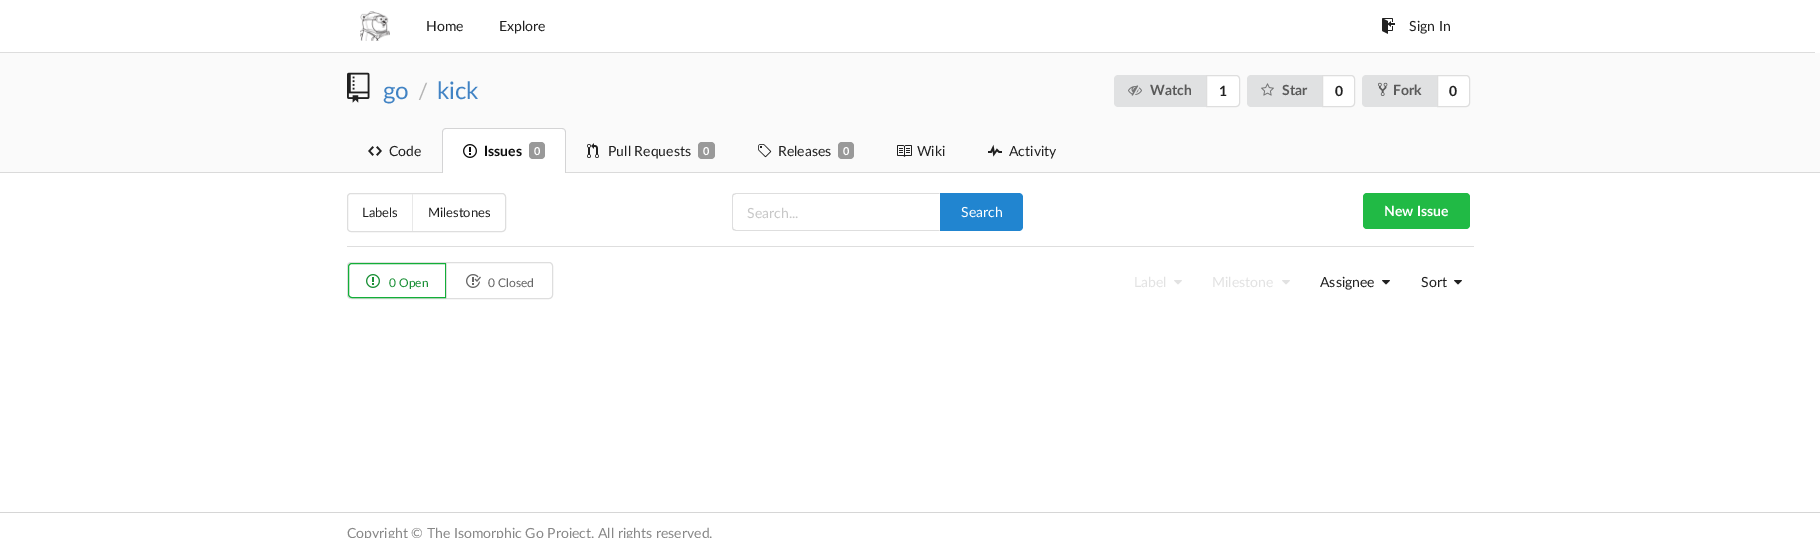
%!PS-Adobe-3.0
%%BoundingBox: 0 0 1820 538
%%LanguageLevel: 3
%%Pages: 1
%%EndComments
%%BeginProlog
/setink { dup -16 bitshift 255 div exch dup -8 bitshift 255 and 255 div exch 255 and 255 div setrgbcolor } def
/usefont { [ exch dup neg 0 0 3 -1 roll 0 0 ] selectfont } def
/setalpha { dup .setfillconstantalpha .setstrokeconstantalpha } def
/rrect { 5 dict begin { /r /h /w /y /x } { exch def } forall
  x r add y moveto x w add y 2 copy h add r arct x w add y h add x 1 index r arct
  x y h add x y r arct x y 2 copy exch w add exch r arct closepath end } def
/drawimage { 5 dict begin { /h /w /y /x /name } { exch def } forall
  gsave x y translate w h scale
  w h 8 [w 0 0 h 0 0] name (r) file false 3 colorimage grestore end } def
%%EndProlog
%%BeginSetup
<< /PageSize [1820 538] /PageUsesTransparency true >> setpagedevice
%%EndSetup
%%Page: 1 1
0 .pushpdf14devicefilter
0 538 translate 1 -1 scale
4 setmiterlimit
16#FFFFFF setink
0 0 1820 538 rectfill
16#DDDDDD setink
0 52 1815 1 rectfill
(img1.raw) 360 11 30 30 drawimage
/Lato-Regular 14 usefont
16#212121 setink
426 31 moveto (Home) show
499 31 moveto (Explore) show
(img2.raw) 1382 18 13 16 drawimage
1409 31 moveto (Sign In) show
16#FAFAFA setink
0 53 1820 119 rectfill
(img3.raw) 347 72 23 31 drawimage
/Lato-Regular 24 usefont
16#4183C4 setink
383 99 moveto (go) show
/Lato-Regular 22 usefont
16#B4B4B4 setink
418 99 moveto (/) show
/Lato-Regular 24 usefont
16#4183C4 setink
437 99 moveto (kick) show
16#E0E1E2 setink
1118 75 moveto 1207 75 lineto 1207 107 lineto 1118 107 lineto 1116 107 1114 105 1114 103 curveto 1114 79 lineto 1114 77 1116 75 1118 75 curveto closepath fill
(img4.raw) 1128 85 14 11 drawimage
/Lato-Bold 14 usefont
16#5A5A5A setink
1150 95 moveto (Watch) show
16#FFFFFF setink
1206.5 75.5 moveto 1236 75.5 lineto 1238 75.5 1239.5 77 1239.5 79 curveto 1239.5 103 lineto 1239.5 105 1238 106.5 1236 106.5 curveto 1206.5 106.5 lineto closepath gsave fill grestore
16#DEDEDE setink
stroke
16#212121 setink
1219 96 moveto (1) show
16#E0E1E2 setink
1251 75 moveto 1323 75 lineto 1323 107 lineto 1251 107 lineto 1249 107 1247 105 1247 103 curveto 1247 79 lineto 1247 77 1249 75 1251 75 curveto closepath fill
(img5.raw) 1261 83 13 13 drawimage
16#5A5A5A setink
1282 95 moveto (Star) show
16#FFFFFF setink
1322.5 75.5 moveto 1351 75.5 lineto 1353 75.5 1354.5 77 1354.5 79 curveto 1354.5 103 lineto 1354.5 105 1353 106.5 1351 106.5 curveto 1322.5 106.5 lineto closepath gsave fill grestore
16#DEDEDE setink
stroke
16#212121 setink
1335 96 moveto (0) show
16#E0E1E2 setink
1366 75 moveto 1438 75 lineto 1438 107 lineto 1366 107 lineto 1364 107 1362 105 1362 103 curveto 1362 79 lineto 1362 77 1364 75 1366 75 curveto closepath fill
(img6.raw) 1378 82 10 14 drawimage
16#5A5A5A setink
1393 95 moveto (Fork) show
16#FFFFFF setink
1437.5 75.5 moveto 1466 75.5 lineto 1468 75.5 1469.5 77 1469.5 79 curveto 1469.5 103 lineto 1469.5 105 1468 106.5 1466 106.5 curveto 1437.5 106.5 lineto closepath gsave fill grestore
16#DEDEDE setink
stroke
16#212121 setink
1449 96 moveto (0) show
(img7.raw) 368 146 14 10 drawimage
/Lato-Regular 14 usefont
389 156 moveto (Code) show
16#DADADA setink
0 172 1820 1 rectfill
16#FFFFFF setink
446 128 moveto 562 128 lineto 564 128 566 130 566 132 curveto 566 173 lineto 442 173 lineto 442 132 lineto 442 130 444 128 446 128 curveto closepath fill
16#D4D4D5 setink
446 128 moveto 562 128 lineto 564 128 566 130 566 132 curveto 566 173 lineto 442 173 lineto 442 132 lineto 442 130 444 128 446 128 curveto closepath 446 129 moveto 562 129 lineto 564 129 565 130 565 132 curveto 565 173 lineto 443 173 lineto 443 132 lineto 443 130 444 129 446 129 curveto closepath eofill
(img8.raw) 463 144 14 14 drawimage
/Lato-Bold 14 usefont
16#0D0D0D setink
484 156 moveto (Issues) show
16#999999 setink
529 142 16 17 4 rrect fill
/Lato-Bold 11 usefont
16#FFFFFF setink
534 155 moveto (0) show
(img9.raw) 587 143 12 15 drawimage
/Lato-Regular 14 usefont
16#212121 setink
608 156 moveto (Pull Requests) show
16#999999 setink
698 142 17 17 4 rrect fill
/Lato-Bold 11 usefont
16#FFFFFF setink
703 155 moveto (0) show
(img10.raw) 758 144 14 14 drawimage
/Lato-Regular 14 usefont
16#212121 setink
778 156 moveto (Releases) show
16#999999 setink
838 142 16 17 4 rrect fill
/Lato-Bold 11 usefont
16#FFFFFF setink
843 155 moveto (0) show
(img11.raw) 897 145 15 12 drawimage
/Lato-Regular 14 usefont
16#212121 setink
917 156 moveto (Wiki) show
(img12.raw) 988 144 14 13 drawimage
1009 156 moveto (Activity) show
16#DEDEDE setink
347.5 193.5 158 38 3.5 rrect stroke
/Lato-Regular 13 usefont
16#212121 setink
362 217 moveto (Labels) show
16#E9E9E9 setink
412 194 1 37 rectfill
16#212121 setink
428 217 moveto (Milestones) show
16#DEDEDE setink
736 193 moveto 733 194 lineto 734 195 lineto 736 194 lineto 939 194 lineto 940 193 lineto closepath fill
940 231 moveto 939 230 lineto 736 230 lineto 734 229 lineto 733 230 lineto 736 231 lineto closepath fill
0.15 setalpha
16#222426 setink
732 197 moveto 732 227 lineto 732 228 732.5 229 733 230 curveto 734 229 lineto 733 229 733 228 733 227 curveto 733 197 lineto 733 196 733 195 734 195 curveto 733 194 lineto 732.5 195 732 196 732 197 curveto closepath fill
/Lato-Regular 14 usefont
1 setalpha
16#C7C7C7 setink
747 218 moveto (Search...) show
16#2185D0 setink
940 193 moveto 1019 193 lineto 1021 193 1023 195 1023 197 curveto 1023 227 lineto 1023 229 1021 231 1019 231 curveto 940 231 lineto closepath fill
16#FFFFFF setink
961 217 moveto (Search) show
16#21BA45 setink
1363 193 107 36 4 rrect fill
/Lato-Bold 14 usefont
16#FFFFFF setink
1384 216 moveto (New Issue) show
16#DEDEDE setink
347 246 1127 1 rectfill
347.5 262.5 205 36 3.5 rrect stroke
16#13AE38 setink
352 263.5 moveto 445.5 263.5 lineto 445.5 297.5 lineto 352 297.5 lineto 350 297.5 348.5 296 348.5 294 curveto 348.5 267 lineto 348.5 265 350 263.5 352 263.5 curveto closepath stroke
(img13.raw) 366 274 14 14 drawimage
/Lato-Regular 12 usefont
16#198F35 setink
389 287 moveto (0 Open) show
16#DEDEDE setink
446 263 1 35 rectfill
(img14.raw) 466 274 15 14 drawimage
16#666666 setink
488 287 moveto (0 Closed) show
/Lato-Regular 14 usefont
16#E2E2E2 setink
1134 287 moveto (Label) show
(img15.raw) 1174 280 8 5 drawimage
1212 287 moveto (Milestone) show
(img15.raw) 1282 280 8 5 drawimage
16#212121 setink
1320 287 moveto (Assignee) show
(img16.raw) 1382 280 8 5 drawimage
1421 287 moveto (Sort) show
(img16.raw) 1454 280 8 5 drawimage
16#D6D6D6 setink
0 512 1820 1 rectfill
16#888888 setink
347 538 moveto (Copyright © The Isomorphic Go Project. All rights reserved.) show
.poppdf14devicefilter showpage
%%EOF
